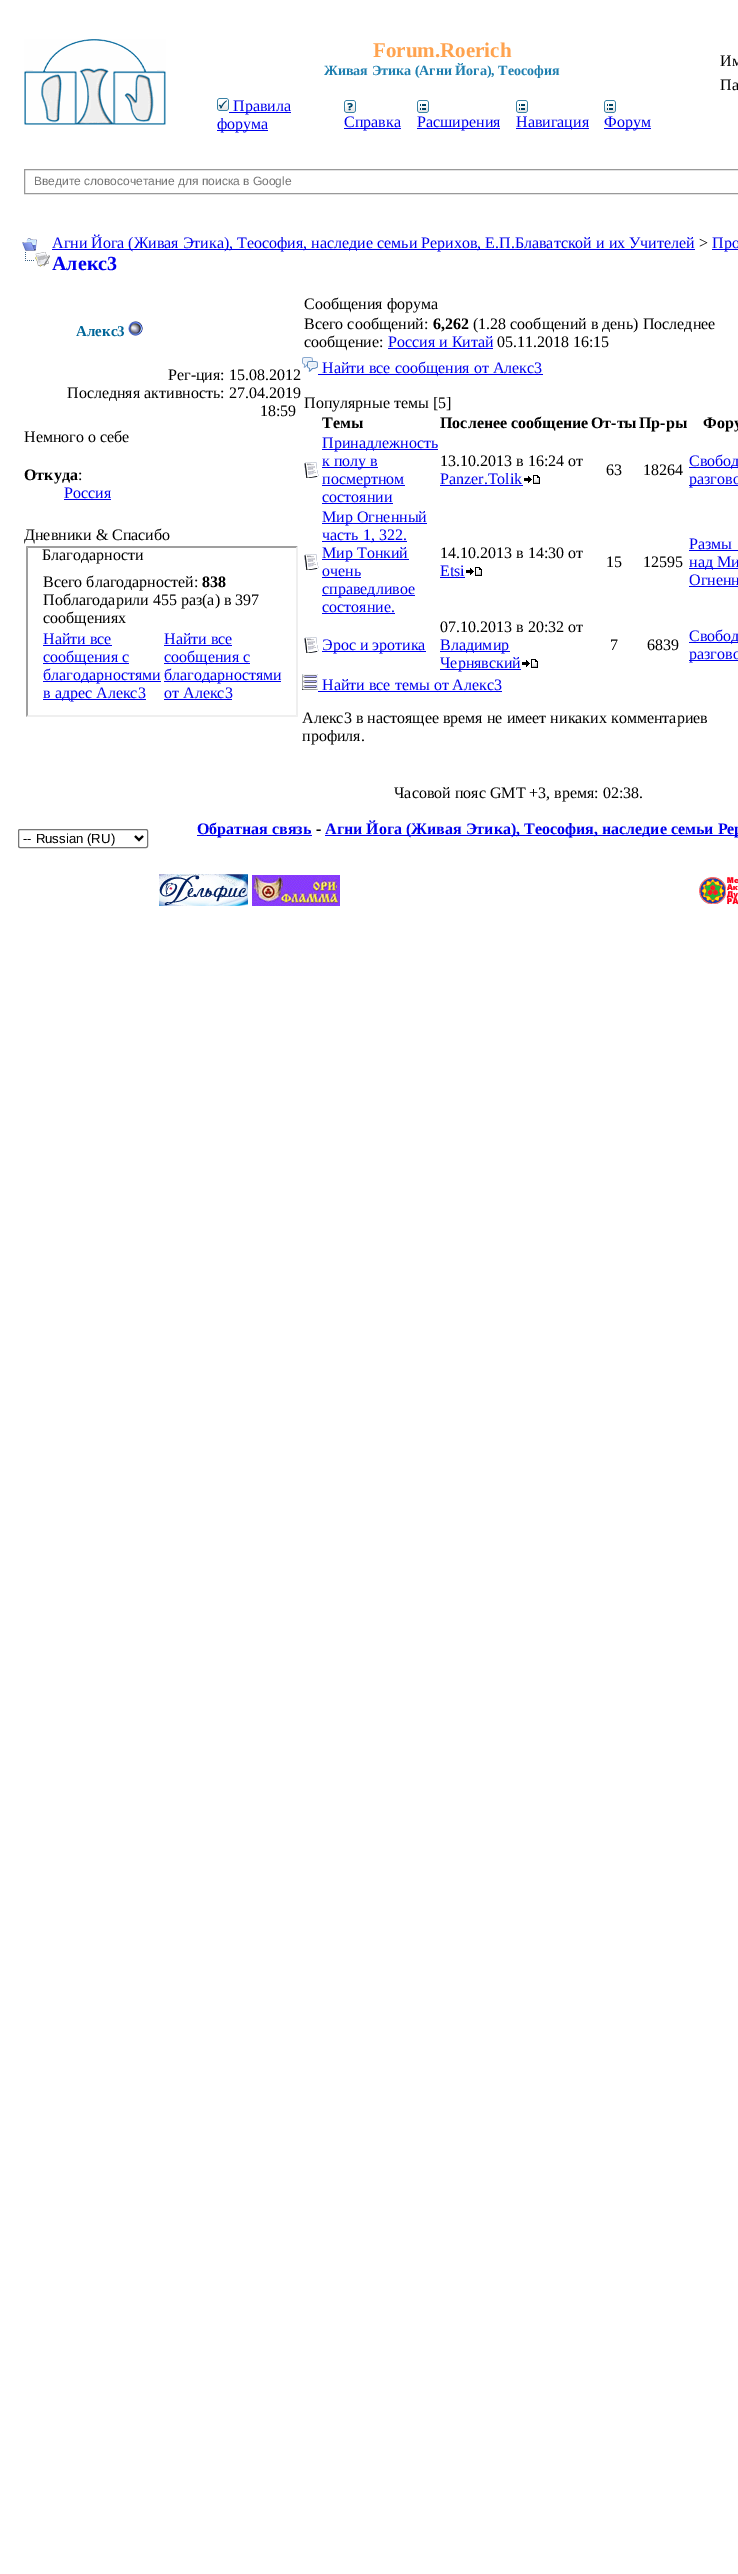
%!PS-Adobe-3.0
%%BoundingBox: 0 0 738 2574
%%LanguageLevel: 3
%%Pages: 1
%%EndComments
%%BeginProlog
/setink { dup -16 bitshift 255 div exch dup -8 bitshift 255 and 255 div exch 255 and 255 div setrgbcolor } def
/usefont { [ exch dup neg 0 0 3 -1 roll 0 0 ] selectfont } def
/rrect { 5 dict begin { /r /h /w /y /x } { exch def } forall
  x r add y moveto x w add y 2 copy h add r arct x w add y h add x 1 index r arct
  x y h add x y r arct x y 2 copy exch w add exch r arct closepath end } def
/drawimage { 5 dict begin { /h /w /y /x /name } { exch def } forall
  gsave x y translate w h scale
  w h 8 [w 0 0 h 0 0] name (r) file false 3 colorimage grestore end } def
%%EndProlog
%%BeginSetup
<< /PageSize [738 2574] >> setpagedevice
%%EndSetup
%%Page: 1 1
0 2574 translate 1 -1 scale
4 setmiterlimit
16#FFFFFF setink
0 0 738 2574 rectfill
(img1.raw) 24 39 142 86 drawimage
/LiberationSerif-Bold 21 usefont
16#FFA34F setink
373 57 moveto (Forum.Roerich) show
/LiberationSerif-Bold 14 usefont
16#1F7FB0 setink
324 75 moveto (Живая Этика \(Агни Йога\), Теософия) show
(img2.raw) 217 98 12 13 drawimage
16#0000EE setink
229 112 62 1 rectfill
/LiberationSerif-Regular 16 usefont
233 111 moveto (Правила) show
217 130 51 1 rectfill
217 129 moveto (форума) show
(img3.raw) 344 100 12 13 drawimage
344 128 57 1 rectfill
344 127 moveto (Справка) show
(img4.raw) 417 100 12 13 drawimage
417 128 83 1 rectfill
417 127 moveto (Расширения) show
(img4.raw) 516 100 12 13 drawimage
516 128 73 1 rectfill
516 127 moveto (Навигация) show
(img4.raw) 604 100 12 13 drawimage
604 128 47 1 rectfill
604 127 moveto (Форум) show
16#000000 setink
720 66 moveto (Им) show
720 90 moveto (Па) show
16#999999 setink
24.5 169.5 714 24 rectstroke
/LiberationSans-Regular 12 usefont
16#757575 setink
34 185 moveto (Введите словосочетание для поиска в Google) show
(img5.raw) 22 238 15 13 drawimage
16#0000EE setink
52 249 643 1 rectfill
/LiberationSerif-Regular 16 usefont
52 248 moveto (Агни Йога \(Живая Этика\), Теософия, наследие семьи Рерихов, Е.П.Блаватской и их Учителей) show
16#000000 setink
699 248 moveto (>) show
16#0000EE setink
712 249 26 1 rectfill
712 248 moveto (Про) show
(img6.raw) 25 252 25 15 drawimage
/LiberationSerif-Bold 20 usefont
52 270 moveto (Алекс3) show
/LiberationSerif-Bold 15 usefont
16#006699 setink
76 336 moveto (Алекс3) show
(img7.raw) 128 321 15 15 drawimage
/LiberationSerif-Regular 16 usefont
16#000000 setink
[
    [(Рег-ция: 15.08.2012) 168 380]
    [(Последняя активность: 27.04.2019) 67 398]
    [(18:59) 260 416]
    [(Немного о себе) 24 442]
] { aload pop moveto show } forall
/LiberationSerif-Bold 16 usefont
24 480 moveto (Откуда) show
/LiberationSerif-Regular 16 usefont
78 480 moveto (:) show
16#0000EE setink
64 498 moveto (Россия) show
64 499 47 1 rectfill
16#000000 setink
24 540 moveto (Дневники & Спасибо) show
16#9F9F9F setink
26 546 moveto 298 546 lineto 296 548 lineto 28 548 lineto closepath fill
16#EFEFEF setink
298 546 moveto 298 717 lineto 296 715 lineto 296 548 lineto closepath fill
298 717 moveto 26 717 lineto 28 715 lineto 296 715 lineto closepath fill
16#9F9F9F setink
26 717 moveto 26 546 lineto 28 548 lineto 28 715 lineto closepath fill
16#000000 setink
42 560 moveto (Благодарности) show
43 587 moveto (Всего благодарностей:) show
/LiberationSerif-Bold 16 usefont
202 587 moveto (838) show
/LiberationSerif-Regular 16 usefont
43 605 moveto (Поблагодарили 455 раз\(а\) в 397) show
43 623 moveto (сообщениях) show
16#0000EE setink
43 644 moveto (Найти все) show
43 645 69 1 rectfill
43 663 86 1 rectfill
43 662 moveto (сообщения с) show
43 681 118 1 rectfill
43 680 moveto (благодарностями) show
43 699 103 1 rectfill
43 698 moveto (в адрес Алекс3) show
164 644 moveto (Найти все) show
164 645 68 1 rectfill
164 663 86 1 rectfill
164 662 moveto (сообщения с) show
164 681 117 1 rectfill
164 680 moveto (благодарностями) show
164 698 moveto (от Алекс3) show
164 699 68 1 rectfill
16#000000 setink
304 309 moveto (Сообщения форума) show
304 329 moveto (Всего сообщений:) show
/LiberationSerif-Bold 16 usefont
433 329 moveto (6,262) show
/LiberationSerif-Regular 16 usefont
473 329 moveto (\(1.28 сообщений в день\) Последнее) show
304 347 moveto (сообщение:) show
16#0000EE setink
388 347 moveto (Россия и Китай) show
388 348 105 1 rectfill
16#000000 setink
497 347 moveto (05.11.2018 16:15) show
(img8.raw) 302 357 16 15 drawimage
16#0000EE setink
318 374 225 1 rectfill
322 373 moveto (Найти все сообщения от Алекс3) show
16#000000 setink
304 408 moveto (Популярные темы [5]) show
/LiberationSerif-Bold 16 usefont
[
    [(Темы) 322 428]
    [(Посленее сообщение) 440 428]
    [(От-ты) 591 428]
    [(Пр-ры) 639 428]
    [(Фору) 703 428]
] { aload pop moveto show } forall
(img9.raw) 304 462 15 16 drawimage
16#0000EE setink
322 449 116 1 rectfill
/LiberationSerif-Regular 16 usefont
322 448 moveto (Принадлежность) show
322 467 56 1 rectfill
322 466 moveto (к полу в) show
322 485 83 1 rectfill
322 484 moveto (посмертном) show
322 502 moveto (состоянии) show
322 503 71 1 rectfill
16#000000 setink
440 466 moveto (13.10.2013 в 16:24 от) show
16#0000EE setink
440 484 moveto (Panzer.Tolik) show
440 485 83 1 rectfill
(img10.raw) 524 475 16 9 drawimage
16#000000 setink
606 475 moveto (63) show
643 475 moveto (18264) show
16#0000EE setink
689 467 49 1 rectfill
689 466 moveto (Свобод) show
689 485 49 1 rectfill
689 484 moveto (разгово) show
(img9.raw) 304 554 15 16 drawimage
322 523 105 1 rectfill
322 522 moveto (Мир Огненный) show
322 541 85 1 rectfill
322 540 moveto (часть 1, 322.) show
322 559 87 1 rectfill
322 558 moveto (Мир Тонкий) show
322 576 moveto (очень) show
322 577 39 1 rectfill
322 595 93 1 rectfill
322 594 moveto (справедливое) show
322 612 moveto (состояние.) show
322 613 73 1 rectfill
16#000000 setink
440 558 moveto (14.10.2013 в 14:30 от) show
16#0000EE setink
440 576 moveto (Etsi) show
440 577 25 1 rectfill
(img10.raw) 466 567 16 9 drawimage
16#000000 setink
606 567 moveto (15) show
643 567 moveto (12595) show
16#0000EE setink
689 549 moveto (Размы) show
689 550 49 1 rectfill
689 568 49 1 rectfill
689 567 moveto (над Ми) show
689 585 moveto (Огненн) show
689 586 49 1 rectfill
(img9.raw) 304 637 15 16 drawimage
322 651 104 1 rectfill
322 650 moveto (Эрос и эротика) show
16#000000 setink
440 632 moveto (07.10.2013 в 20:32 от) show
16#0000EE setink
440 651 70 1 rectfill
440 650 moveto (Владимир) show
440 669 81 1 rectfill
440 668 moveto (Чернявский) show
(img10.raw) 522 659 16 9 drawimage
16#000000 setink
610 650 moveto (7) show
647 650 moveto (6839) show
16#0000EE setink
689 642 49 1 rectfill
689 641 moveto (Свобод) show
689 660 49 1 rectfill
689 659 moveto (разгово) show
(img11.raw) 302 674 16 16 drawimage
322 690 moveto (Найти все темы от Алекс3) show
318 691 184 1 rectfill
16#000000 setink
[
    [(Алекс3 в настоящее время не имеет никаких комментариев) 302 723]
    [(профиля.) 302 741]
    [(Часовой пояс GMT +3, время: 02:38.) 394 798]
] { aload pop moveto show } forall
16#0000EE setink
197 835 115 1 rectfill
/LiberationSerif-Bold 16 usefont
197 834 moveto (Обратная связь) show
16#000000 setink
316 834 moveto (-) show
16#0000EE setink
325 835 413 1 rectfill
325 834 moveto (Агни Йога \(Живая Этика\), Теософия, наследие семьи Рер) show
16#767676 setink
18.5 829.5 129 18 1.5 rrect stroke
16#000000 setink
2 setlinewidth
135 836 moveto 139 840 lineto 143 836 lineto stroke
/LiberationSans-Regular 13.25 usefont
23 843 moveto (-- Russian \(RU\)) show
(img12.raw) 159 874 89 32 drawimage
(img13.raw) 252 875 88 31 drawimage
(img14.raw) 699 877 39 28 drawimage
showpage
%%EOF
